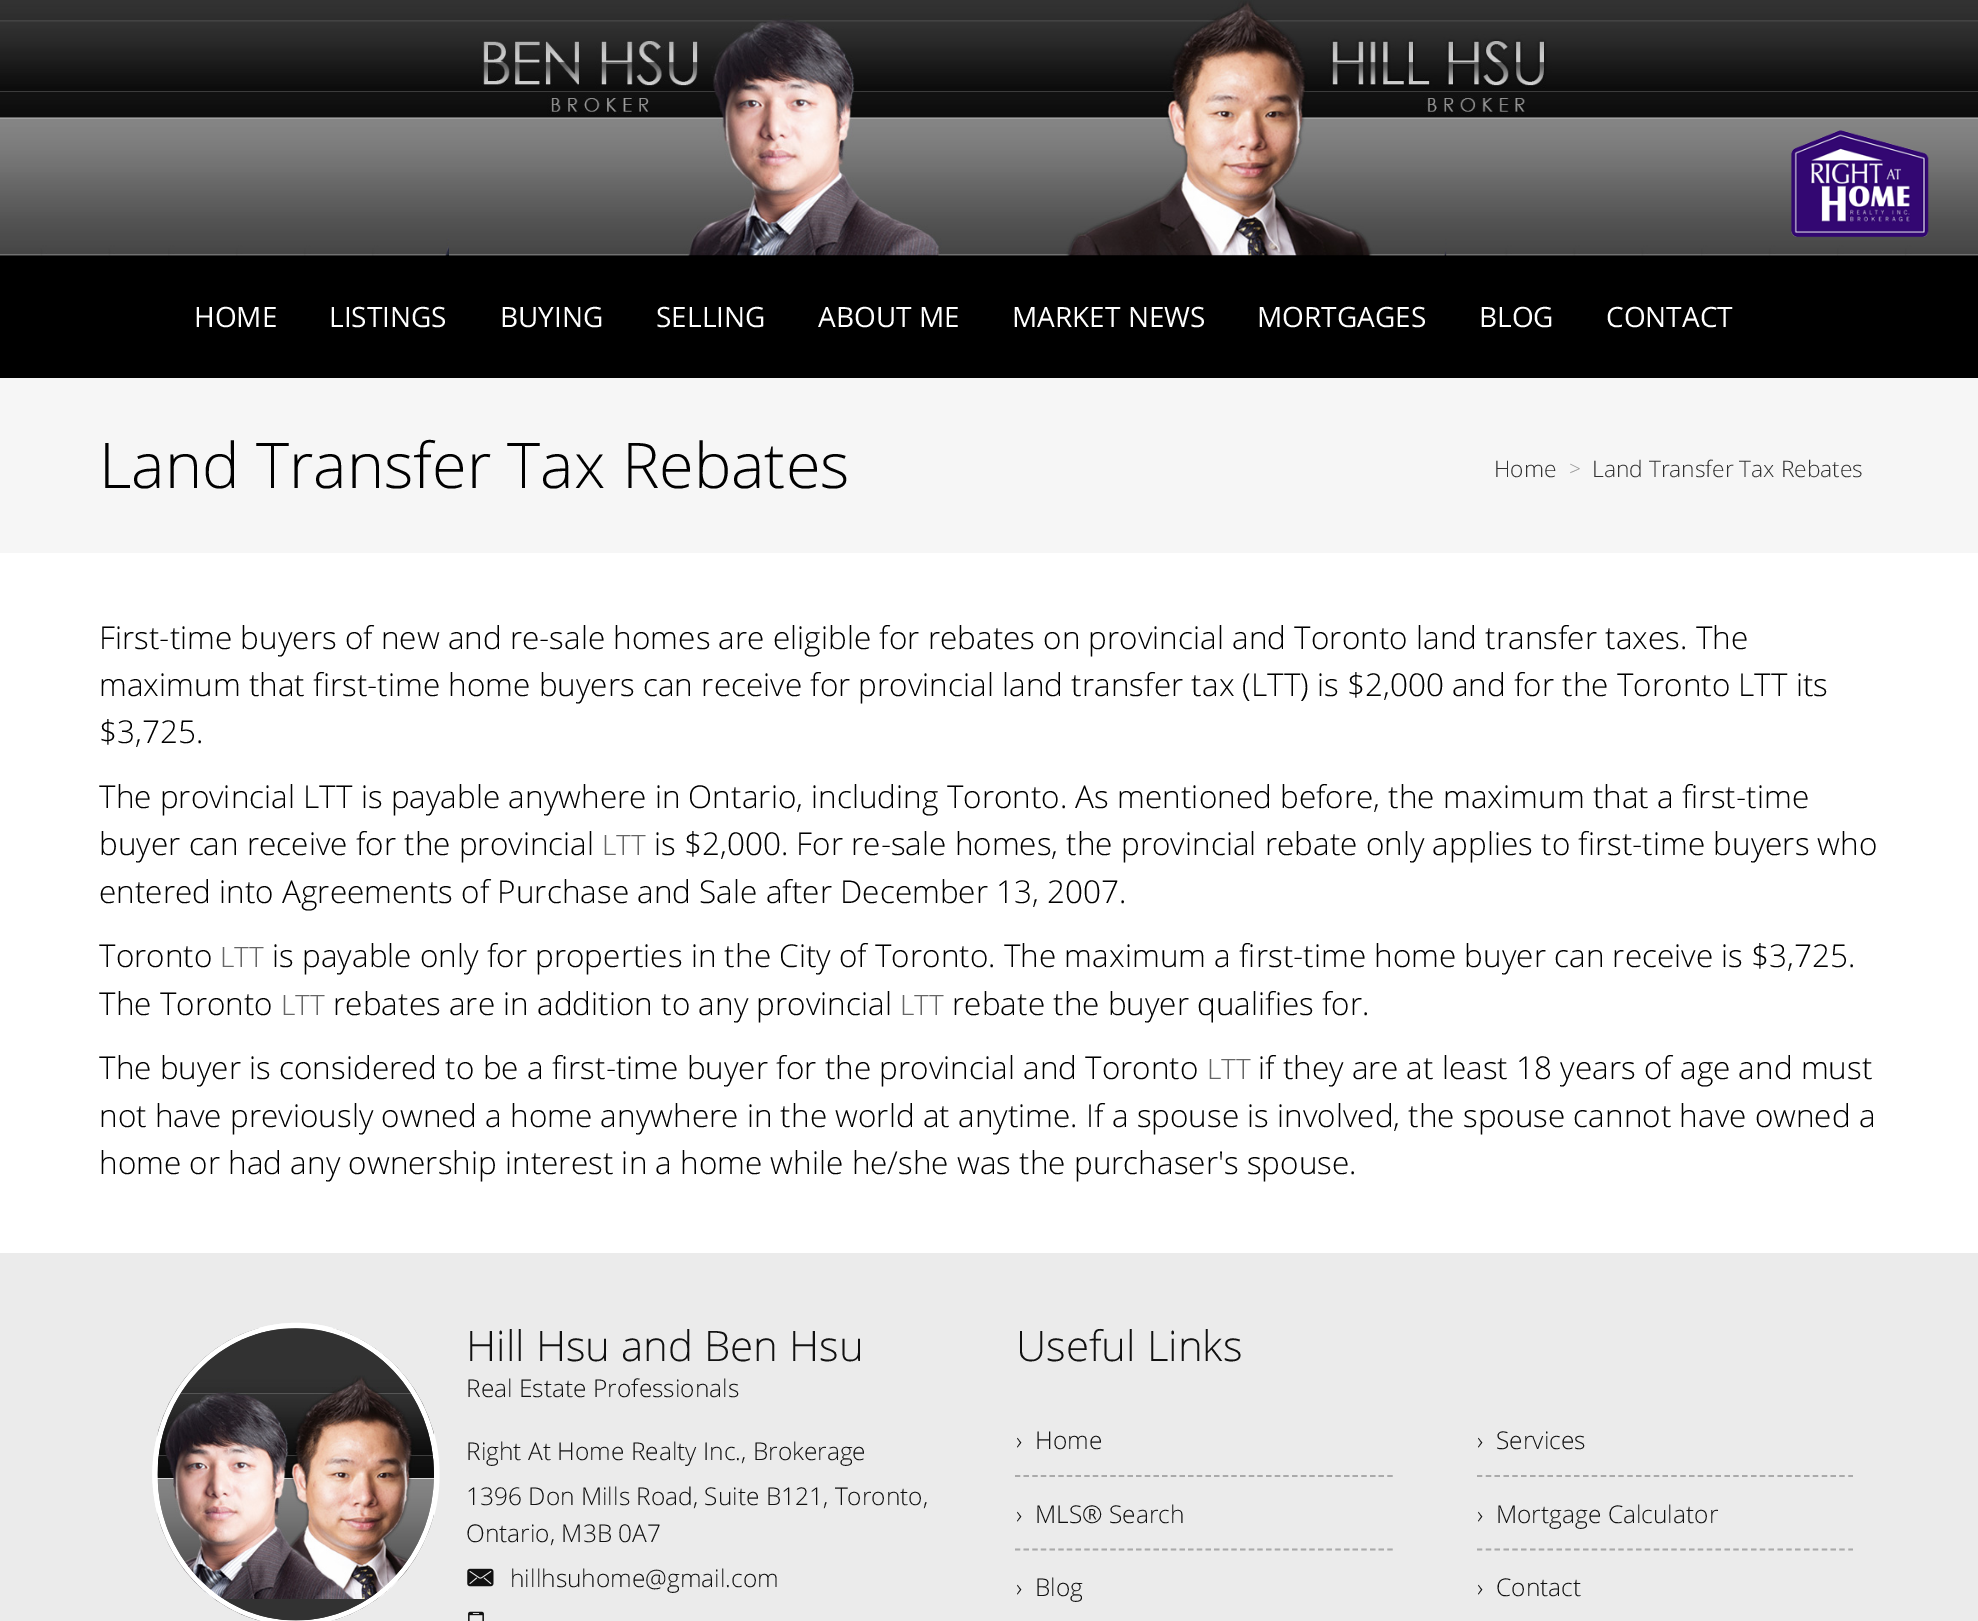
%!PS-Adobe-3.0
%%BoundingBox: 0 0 1978 1621
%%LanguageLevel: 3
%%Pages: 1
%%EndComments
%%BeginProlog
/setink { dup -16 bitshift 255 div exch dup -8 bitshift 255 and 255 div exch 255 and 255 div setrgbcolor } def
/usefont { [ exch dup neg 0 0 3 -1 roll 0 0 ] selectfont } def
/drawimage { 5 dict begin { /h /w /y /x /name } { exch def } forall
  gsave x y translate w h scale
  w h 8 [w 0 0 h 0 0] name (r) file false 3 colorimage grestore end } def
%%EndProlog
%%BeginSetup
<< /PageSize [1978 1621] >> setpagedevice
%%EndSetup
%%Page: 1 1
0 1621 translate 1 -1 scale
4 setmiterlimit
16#FFFFFF setink
0 0 1978 1621 rectfill
16#000000 setink
0 255 1978 123 rectfill
(img1.raw) 0 0 1978 256 drawimage
/OpenSans-Regular 28 usefont
16#FFFFFF setink
[
    [(HOME) 194 327]
    [(LISTINGS) 329 327]
    [(BUYING) 500 327]
    [(SELLING) 656 327]
    [(ABOUT ME) 818 327]
    [(MARKET NEWS) 1012 327]
    [(MORTGAGES) 1257 327]
    [(BLOG) 1479 327]
    [(CONTACT) 1606 327]
] { aload pop moveto show } forall
16#F6F6F6 setink
0 378 1978 175 rectfill
/OpenSans-Light 63 usefont
16#000000 setink
99 488 moveto (Land Transfer Tax Rebates) show
/OpenSans-Light 22.75 usefont
16#313131 setink
1494 477 moveto (Home) show
/OpenSans-Light 21 usefont
16#949494 setink
1569 476 moveto (>) show
/OpenSans-Light 22.75 usefont
16#313131 setink
1592 477 moveto (Land Transfer Tax Rebates) show
/OpenSans-Light 31.5 usefont
16#000000 setink
[
    [(First-time buyers of new and re-sale homes are eligible for rebates on provincial and Toronto land transfer taxes. The) 99 649]
    [(maximum that first-time home buyers can receive for provincial land transfer tax \(LTT\) is $2,000 and for the Toronto LTT its) 99 696]
    [($3,725.) 99 743]
    [(The provincial LTT is payable anywhere in Ontario, including Toronto. As mentioned before, the maximum that a first-time) 99 808]
    [(buyer can receive for the provincial) 99 855]
] { aload pop moveto show } forall
/OpenSans-Light 28 usefont
16#666666 setink
602 855 moveto (LTT) show
/OpenSans-Light 31.5 usefont
16#000000 setink
[
    [(is $2,000. For re-sale homes, the provincial rebate only applies to first-time buyers who) 654 855]
    [(entered into Agreements of Purchase and Sale after December 13, 2007.) 99 903]
    [(Toronto) 99 967]
] { aload pop moveto show } forall
/OpenSans-Light 28 usefont
16#666666 setink
220 967 moveto (LTT) show
/OpenSans-Light 31.5 usefont
16#000000 setink
272 967 moveto (is payable only for properties in the City of Toronto. The maximum a first-time home buyer can receive is $3,725.) show
99 1015 moveto (The Toronto) show
/OpenSans-Light 28 usefont
16#666666 setink
281 1015 moveto (LTT) show
/OpenSans-Light 31.5 usefont
16#000000 setink
333 1015 moveto (rebates are in addition to any provincial) show
/OpenSans-Light 28 usefont
16#666666 setink
900 1015 moveto (LTT) show
/OpenSans-Light 31.5 usefont
16#000000 setink
952 1015 moveto (rebate the buyer qualifies for.) show
99 1079 moveto (The buyer is considered to be a first-time buyer for the provincial and Toronto) show
/OpenSans-Light 28 usefont
16#666666 setink
1207 1079 moveto (LTT) show
/OpenSans-Light 31.5 usefont
16#000000 setink
[
    [(if they are at least 18 years of age and must) 1258 1079]
    [(not have previously owned a home anywhere in the world at anytime. If a spouse is involved, the spouse cannot have owned a) 99 1127]
    [(home or had any ownership interest in a home while he/she was the purchaser's spouse.) 99 1174]
] { aload pop moveto show } forall
16#EBEBEB setink
0 1253 1978 368 rectfill
16#FFFFFF setink
296 1323 moveto 375.5 1323 439.5 1391 439.5 1474.5 curveto 439.5 1558 375.5 1626 296 1626 curveto 216.5 1626 152.5 1558 152.5 1474.5 curveto 152.5 1391 216.5 1323 296 1323 curveto closepath fill
(img2.raw) 157 1328 277 293 drawimage
5.2 setlinewidth
296 1325.5 moveto 373.5 1325.5 436.5 1392 436.5 1474.5 curveto 436.5 1556.5 373.5 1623 296 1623 curveto 218 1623 155 1556.5 155 1474.5 curveto 155 1392 218 1325.5 296 1325.5 curveto closepath stroke
(img3.raw) 157 1328 277 293 drawimage
/OpenSans-Light 42 usefont
16#111111 setink
466 1361 moveto (Hill Hsu and Ben Hsu) show
/OpenSans-Light 24.5 usefont
[
    [(Real Estate Professionals) 466 1397]
    [(Right At Home Realty Inc., Brokerage) 466 1460]
    [(1396 Don Mills Road, Suite B121, Toronto,) 466 1505]
    [(Ontario, M3B 0A7) 466 1542]
] { aload pop moveto show } forall
(img4.raw) 467 1568 27 19 drawimage
510 1587 moveto (hillhsuhome@gmail.com) show
(img5.raw) 468 1611 16 10 drawimage
/OpenSans-Light 42 usefont
1016 1361 moveto (Useful Links) show
16#AAAAAA setink
1.8 setlinewidth
[5.25 3.41] 0 setdash
1015 1476 moveto 1393 1476 lineto stroke
/OpenSans-Light 24.5 usefont
16#111111 setink
1016 1449 moveto (›  Home) show
16#AAAAAA setink
[5.25 3.59] 0 setdash
1477 1476 moveto 1853 1476 lineto stroke
16#111111 setink
1477 1449 moveto (›  Services) show
16#AAAAAA setink
[5.25 3.41] 0 setdash
1015 1549.5 moveto 1393 1549.5 lineto stroke
16#111111 setink
1016 1523 moveto (›  MLS® Search) show
16#AAAAAA setink
[5.25 3.59] 0 setdash
1477 1549.5 moveto 1853 1549.5 lineto stroke
16#111111 setink
[
    [(›  Mortgage Calculator) 1477 1523]
    [(›  Blog) 1016 1596]
    [(›  Contact) 1477 1596]
] { aload pop moveto show } forall
showpage
%%EOF
